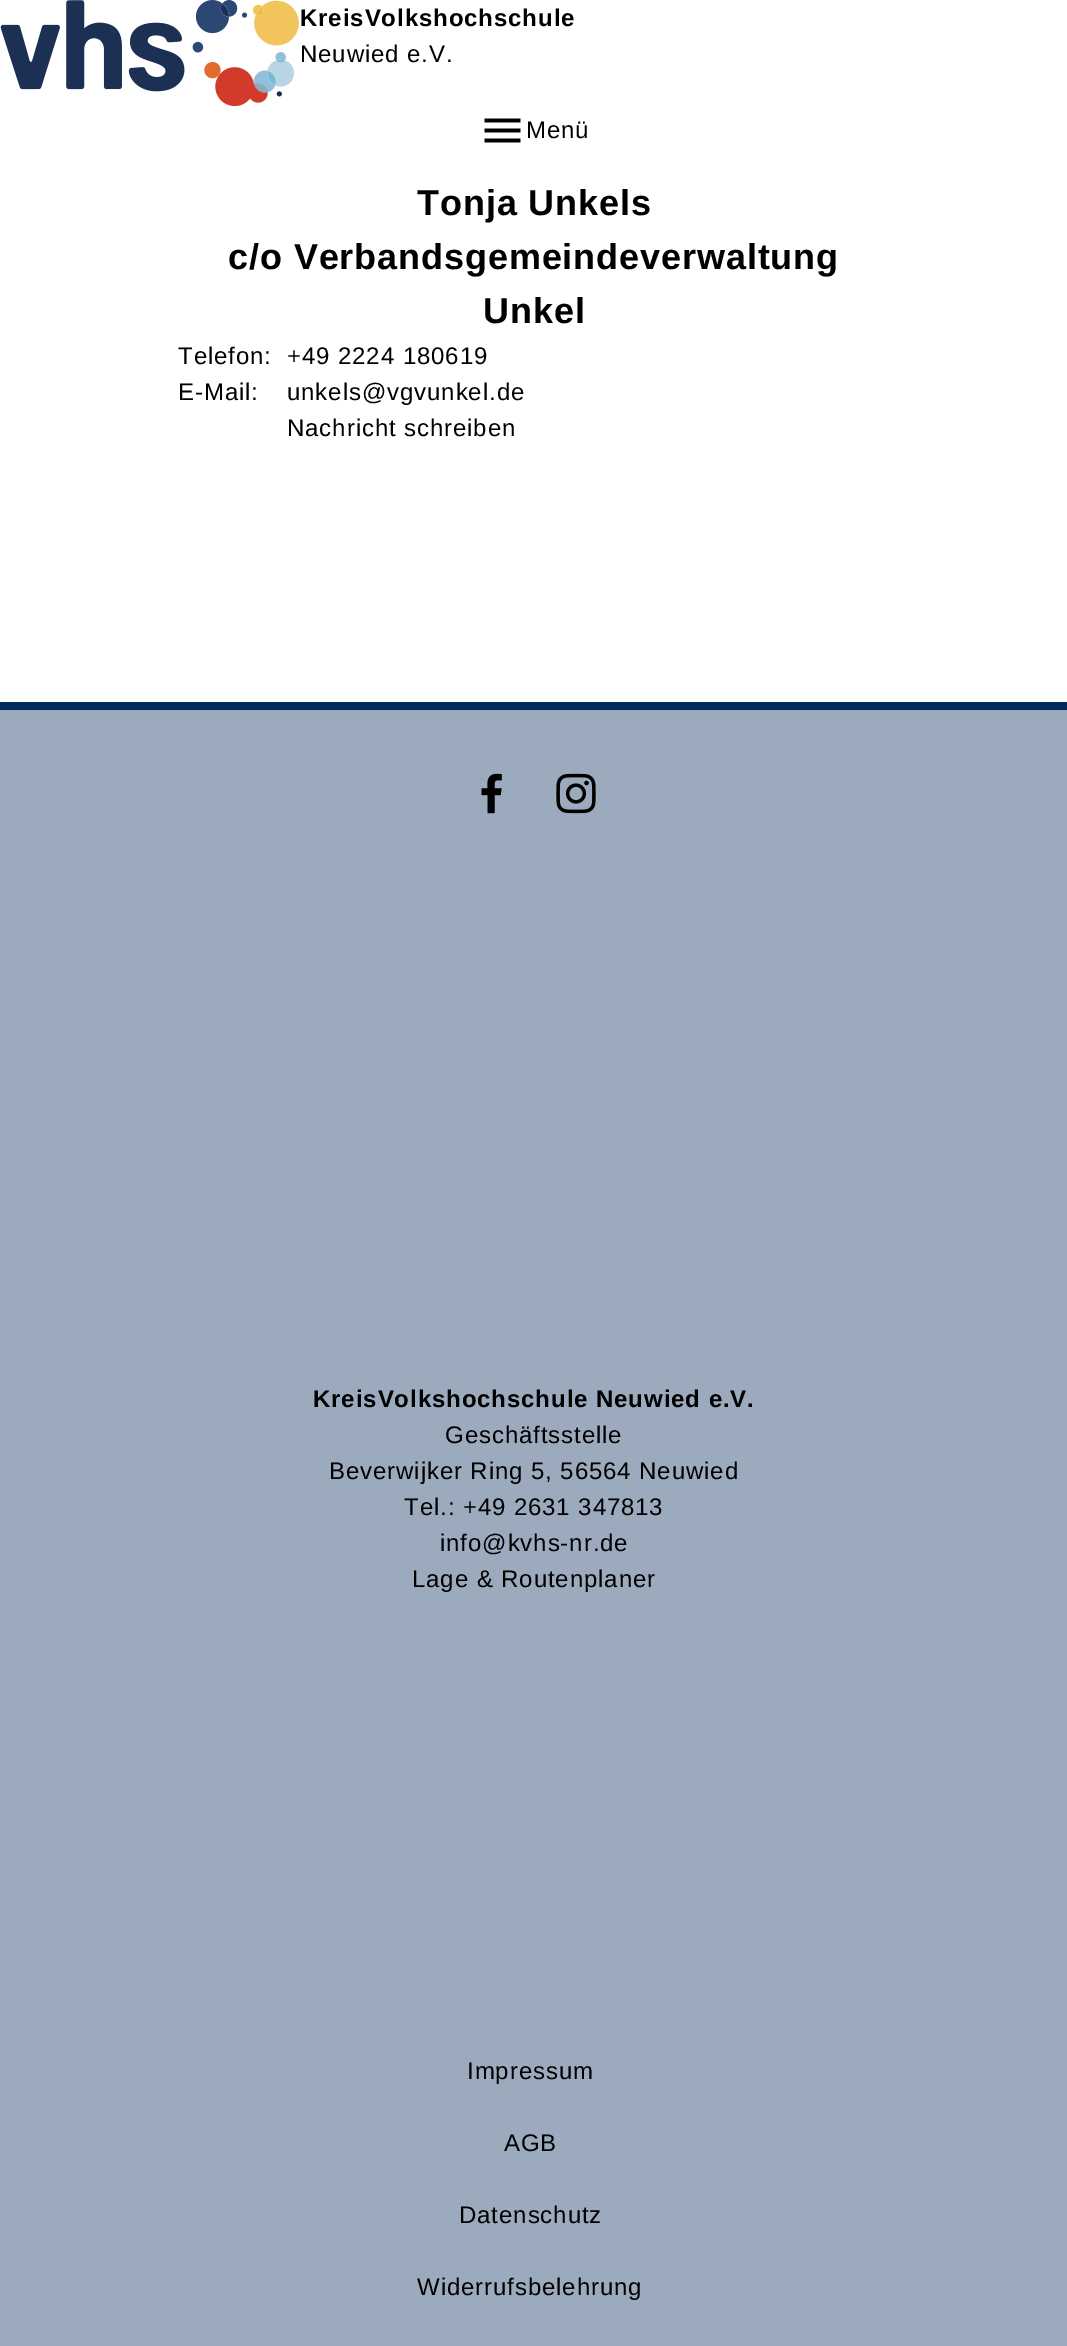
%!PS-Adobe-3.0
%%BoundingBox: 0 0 1067 2346
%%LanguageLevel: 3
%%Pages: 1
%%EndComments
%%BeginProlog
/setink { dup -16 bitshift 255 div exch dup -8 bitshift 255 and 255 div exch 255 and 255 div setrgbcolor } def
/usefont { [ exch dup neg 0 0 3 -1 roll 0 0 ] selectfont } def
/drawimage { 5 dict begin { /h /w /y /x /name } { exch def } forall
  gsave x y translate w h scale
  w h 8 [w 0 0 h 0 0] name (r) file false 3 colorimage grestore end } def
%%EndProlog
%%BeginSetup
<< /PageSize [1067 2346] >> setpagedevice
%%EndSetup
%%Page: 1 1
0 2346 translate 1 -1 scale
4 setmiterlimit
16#FFFFFF setink
0 0 1067 2346 rectfill
(img1.raw) 0 0 299 107 drawimage
/LiberationSans-Bold 24 usefont
16#000000 setink
300 26 moveto 0.9 0 (KreisVolkshochschule) ashow
/LiberationSans-Regular 24 usefont
300 62 moveto 0.9 0 (Neuwied e.V.) ashow
(img2.raw) 484 118 37 25 drawimage
526 138 moveto 0.9 0 (Menü) ashow
/LiberationSans-Bold 36 usefont
417 215 moveto 0.9 0 (Tonja Unkels) ashow
228 269 moveto 0.9 0 (c/o Verbandsgemeindeverwaltung) ashow
483 323 moveto 0.9 0 (Unkel) ashow
/LiberationSans-Regular 24 usefont
178 364 moveto 0.9 0 (Telefon:) ashow
287 364 moveto 0.9 0 (+49 2224 180619) ashow
178 400 moveto 0.9 0 (E-Mail:) ashow
287 400 moveto 0.9 0 (unkels@vgvunkel.de) ashow
287 436 moveto 0.9 0 (Nachricht schreiben) ashow
16#9BABBD setink
0 710 1067 1636 rectfill
16#002C5B setink
0 702 1067 8 rectfill
(img3.raw) 481 773 21 41 drawimage
(img4.raw) 556 773 40 41 drawimage
/LiberationSans-Bold 24 usefont
16#000000 setink
313 1407 moveto 0.9 0 (KreisVolkshochschule Neuwied e.V.) ashow
/LiberationSans-Regular 24 usefont
445 1443 moveto 0.9 0 (Geschäftsstelle) ashow
329 1479 moveto 0.9 0 (Beverwijker Ring 5, 56564 Neuwied) ashow
404 1515 moveto 0.9 0 (Tel.: +49 2631 347813) ashow
440 1551 moveto 0.9 0 (info@kvhs-nr.de) ashow
412 1587 moveto 0.9 0 (Lage & Routenplaner) ashow
467 2079 moveto 0.9 0 (Impressum) ashow
504 2151 moveto 0.9 0 (AGB) ashow
459 2223 moveto 0.9 0 (Datenschutz) ashow
417 2295 moveto 0.9 0 (Widerrufsbelehrung) ashow
showpage
%%EOF
